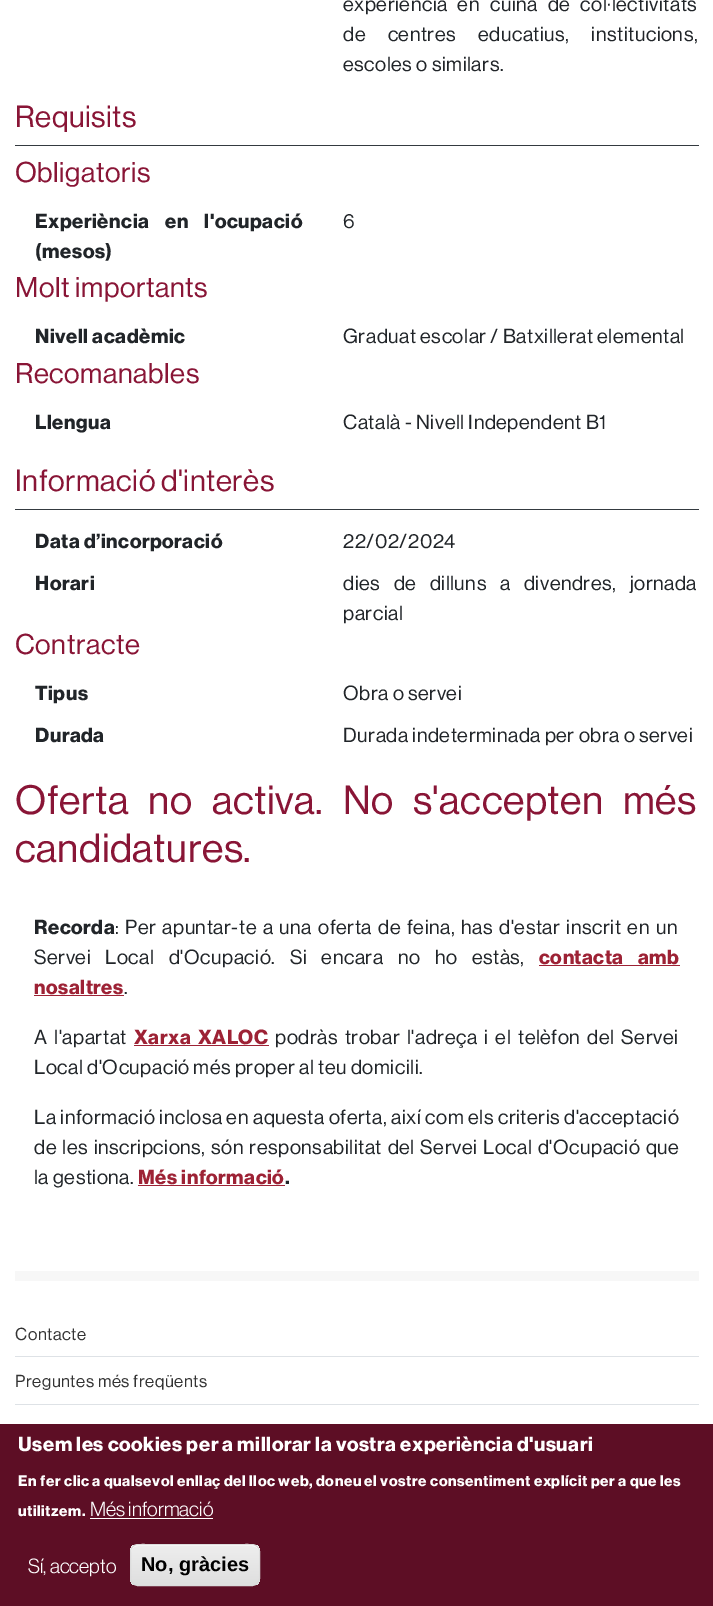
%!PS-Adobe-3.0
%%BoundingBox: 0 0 713 1606
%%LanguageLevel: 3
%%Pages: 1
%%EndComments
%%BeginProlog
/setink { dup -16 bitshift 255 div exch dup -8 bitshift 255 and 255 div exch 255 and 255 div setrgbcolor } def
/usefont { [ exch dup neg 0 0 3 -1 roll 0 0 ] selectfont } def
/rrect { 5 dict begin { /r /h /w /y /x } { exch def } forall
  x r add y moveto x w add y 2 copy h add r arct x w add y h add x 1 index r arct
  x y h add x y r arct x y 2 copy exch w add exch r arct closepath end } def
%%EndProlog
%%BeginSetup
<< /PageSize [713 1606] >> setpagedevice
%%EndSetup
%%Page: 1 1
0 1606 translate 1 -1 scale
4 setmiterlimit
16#FFFFFF setink
0 0 713 1606 rectfill
/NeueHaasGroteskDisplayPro-Medium 20 usefont
16#212529 setink
343 11 moveto 6 0 32 0.55 0 (experiència en) awidthshow
490 11 moveto 6 0 32 0.55 0 (cuina de col·lectivitats) awidthshow
343 41 moveto 18 0 32 0.55 0 (de centres educatius, institucions,) awidthshow
343 71 moveto 0.55 0 (escoles o similars.) ashow
16#343A40 setink
15 145 684 1 rectfill
/NeueHaasGroteskDisplayPro-Medium 30 usefont
16#891536 setink
15 127 moveto 0.55 0 (Requisits) ashow
/NeueHaasGroteskDisplayPro-Medium 28 usefont
15 182 moveto 0.55 0 (Obligatoris) ashow
/NeueHaasGroteskDisplayPro-Bold 20 usefont
16#212529 setink
35 228 moveto 12 0 32 0.55 0 (Experiència en l'ocupació) awidthshow
35 258 moveto 0.55 0 (\(mesos\)) ashow
/NeueHaasGroteskDisplayPro-Medium 20 usefont
343 228 moveto 0.55 0 (6) ashow
/NeueHaasGroteskDisplayPro-Medium 28 usefont
16#891536 setink
15 297 moveto 0.55 0 (Molt importants) ashow
/NeueHaasGroteskDisplayPro-Bold 20 usefont
16#212529 setink
35 343 moveto 0.55 0 (Nivell acadèmic) ashow
/NeueHaasGroteskDisplayPro-Medium 20 usefont
343 343 moveto 0.55 0 (Graduat escolar / Batxillerat elemental) ashow
/NeueHaasGroteskDisplayPro-Medium 28 usefont
16#891536 setink
15 383 moveto 0.55 0 (Recomanables) ashow
/NeueHaasGroteskDisplayPro-Bold 20 usefont
16#212529 setink
35 429 moveto 0.55 0 (Llengua) ashow
/NeueHaasGroteskDisplayPro-Medium 20 usefont
343 429 moveto 0.55 0 (Català - Nivell Independent B1) ashow
16#343A40 setink
15 509 684 1 rectfill
/NeueHaasGroteskDisplayPro-Medium 30 usefont
16#891536 setink
15 491 moveto 0.55 0 (Informació d'interès) ashow
/NeueHaasGroteskDisplayPro-Bold 20 usefont
16#212529 setink
35 548 moveto 0.55 0 (Data d’incorporació) ashow
/NeueHaasGroteskDisplayPro-Medium 20 usefont
343 548 moveto 0.55 0 (22/02/2024) ashow
/NeueHaasGroteskDisplayPro-Bold 20 usefont
35 590 moveto 0.55 0 (Horari) ashow
/NeueHaasGroteskDisplayPro-Medium 20 usefont
343 590 moveto 9.5 0 32 0.55 0 (dies de dilluns a divendres, jornada) awidthshow
343 620 moveto 0.55 0 (parcial) ashow
/NeueHaasGroteskDisplayPro-Medium 28 usefont
16#891536 setink
15 654 moveto 0.55 0 (Contracte) ashow
/NeueHaasGroteskDisplayPro-Bold 20 usefont
16#212529 setink
35 700 moveto 0.55 0 (Tipus) ashow
/NeueHaasGroteskDisplayPro-Medium 20 usefont
343 700 moveto 0.55 0 (Obra o servei) ashow
/NeueHaasGroteskDisplayPro-Bold 20 usefont
35 742 moveto 0.55 0 (Durada) ashow
/NeueHaasGroteskDisplayPro-Medium 20 usefont
343 742 moveto 0.55 0 (Durada indeterminada per obra o servei) ashow
/NeueHaasGroteskDisplayPro-Medium 40 usefont
16#891536 setink
15 814 moveto 12.5 0 32 0.55 0 (Oferta no activa. No s'accepten més) awidthshow
15 862 moveto 0.55 0 (candidatures.) ashow
/NeueHaasGroteskDisplayPro-Bold 20 usefont
16#212529 setink
34 934 moveto 0.55 0 (Recorda) ashow
/NeueHaasGroteskDisplayPro-Medium 20 usefont
115 934 moveto 0.55 0 (:) ashow
125 934 moveto 2.25 0 32 0.55 0 (Per apuntar-te a una oferta de feina, has d'estar inscrit en un) awidthshow
34 964 moveto 10.5 0 32 0.55 0 (Servei Local d'Ocupació. Si encara no ho estàs,) awidthshow
/NeueHaasGroteskDisplayPro-Bold 20 usefont
16#9D2235 setink
539 964 moveto 10.5 0 32 0.55 0 (contacta amb) awidthshow
539 965 141 1 rectfill
34 994 moveto 0.55 0 (nosaltres) ashow
34 995 90 1 rectfill
/NeueHaasGroteskDisplayPro-Medium 20 usefont
16#212529 setink
124 994 moveto 0.55 0 (.) ashow
34 1044 moveto 3 0 32 0.55 0 (A l'apartat) awidthshow
/NeueHaasGroteskDisplayPro-Bold 20 usefont
16#9D2235 setink
134 1044 moveto 3 0 32 0.55 0 (Xarxa XALOC) awidthshow
134 1045 135 1 rectfill
/NeueHaasGroteskDisplayPro-Medium 20 usefont
16#212529 setink
275 1044 moveto 3 0 32 0.55 0 (podràs trobar l'adreça i el telèfon del Servei) awidthshow
34 1074 moveto 0.55 0 (Local d'Ocupació més proper al teu domicili.) ashow
34 1124 moveto 0.25 0 32 0.55 0 (La informació inclosa en aquesta oferta, així com els criteris d'acceptació) awidthshow
34 1154 moveto 1.75 0 32 0.55 0 (de les inscripcions, són responsabilitat del Servei Local d'Ocupació que) awidthshow
34 1184 moveto 0.55 0 (la gestiona.) ashow
/NeueHaasGroteskDisplayPro-Bold 20 usefont
16#9D2235 setink
138 1184 moveto 0.55 0 (Més informació) ashow
138 1185 147 1 rectfill
16#212529 setink
285 1184 moveto 0.55 0 (.) ashow
16#F7F7F7 setink
15 1271 684 10 rectfill
16#DEE2E6 setink
15 1356 684 1 rectfill
/NeueHaasGroteskDisplayPro-Medium 17 usefont
16#333333 setink
15 1340 moveto 0.55 0 (Contacte) ashow
16#DEE2E6 setink
15 1404 684 1 rectfill
16#333333 setink
15 1387 moveto 0.55 0 (Preguntes més freqüents) ashow
16#5D0E25 setink
0 1424 713 182 rectfill
/NeueHaasGroteskDisplayPro-Bold 20 usefont
16#FFFFFF setink
18 1451 moveto 0.55 0 (Usem les cookies per a millorar la vostra experiència d'usuari) ashow
/NeueHaasGroteskDisplayPro-Bold 15 usefont
18 1486 moveto 0.55 0 (En fer clic a qualsevol enllaç del lloc web, doneu el vostre consentiment explícit per a que les) ashow
18 1516 moveto 0.55 0 (utilitzem.) ashow
/NeueHaasGroteskDisplayPro-Regular 20 usefont
90 1516 moveto (Més informació) show
90 1518 123 1 rectfill
28 1573 moveto (Sí, accepto) show
gsave
130 1544 130 42 8 rrect clip newpath
gsave 130 1545 moveto 260 1545 lineto 260 1585 lineto 130 1585 lineto closepath clip newpath
<< /ShadingType 2 /ColorSpace /DeviceRGB /Coords [195 1545 195 1585] /Extend [true true] /Function << /FunctionType 3 /Domain [0 1] /Functions [<< /FunctionType 2 /Domain [0 1] /C0 [0.929 0.929 0.929] /C1 [0.929 0.929 0.929] /N 1 >> << /FunctionType 2 /Domain [0 1] /C0 [0.929 0.929 0.929] /C1 [0.875 0.875 0.875] /N 1 >>] /Bounds [0.05] /Encode [0 1 0 1] >> >> shfill grestore
grestore
138 1546 moveto 252 1546 lineto 256 1546 259 1549 259 1552 curveto 259 1540 239 1545 234 1545 curveto 156 1545 lineto 151 1545 131 1540 131 1552 curveto 131 1549 134 1546 138 1546 curveto closepath fill
16#DCDCDC setink
130.5 1544.5 129 41 7.5 rrect stroke
/LiberationSans-Bold 20 usefont
16#000000 setink
141 1571 moveto (No, gràcies) show
showpage
%%EOF
